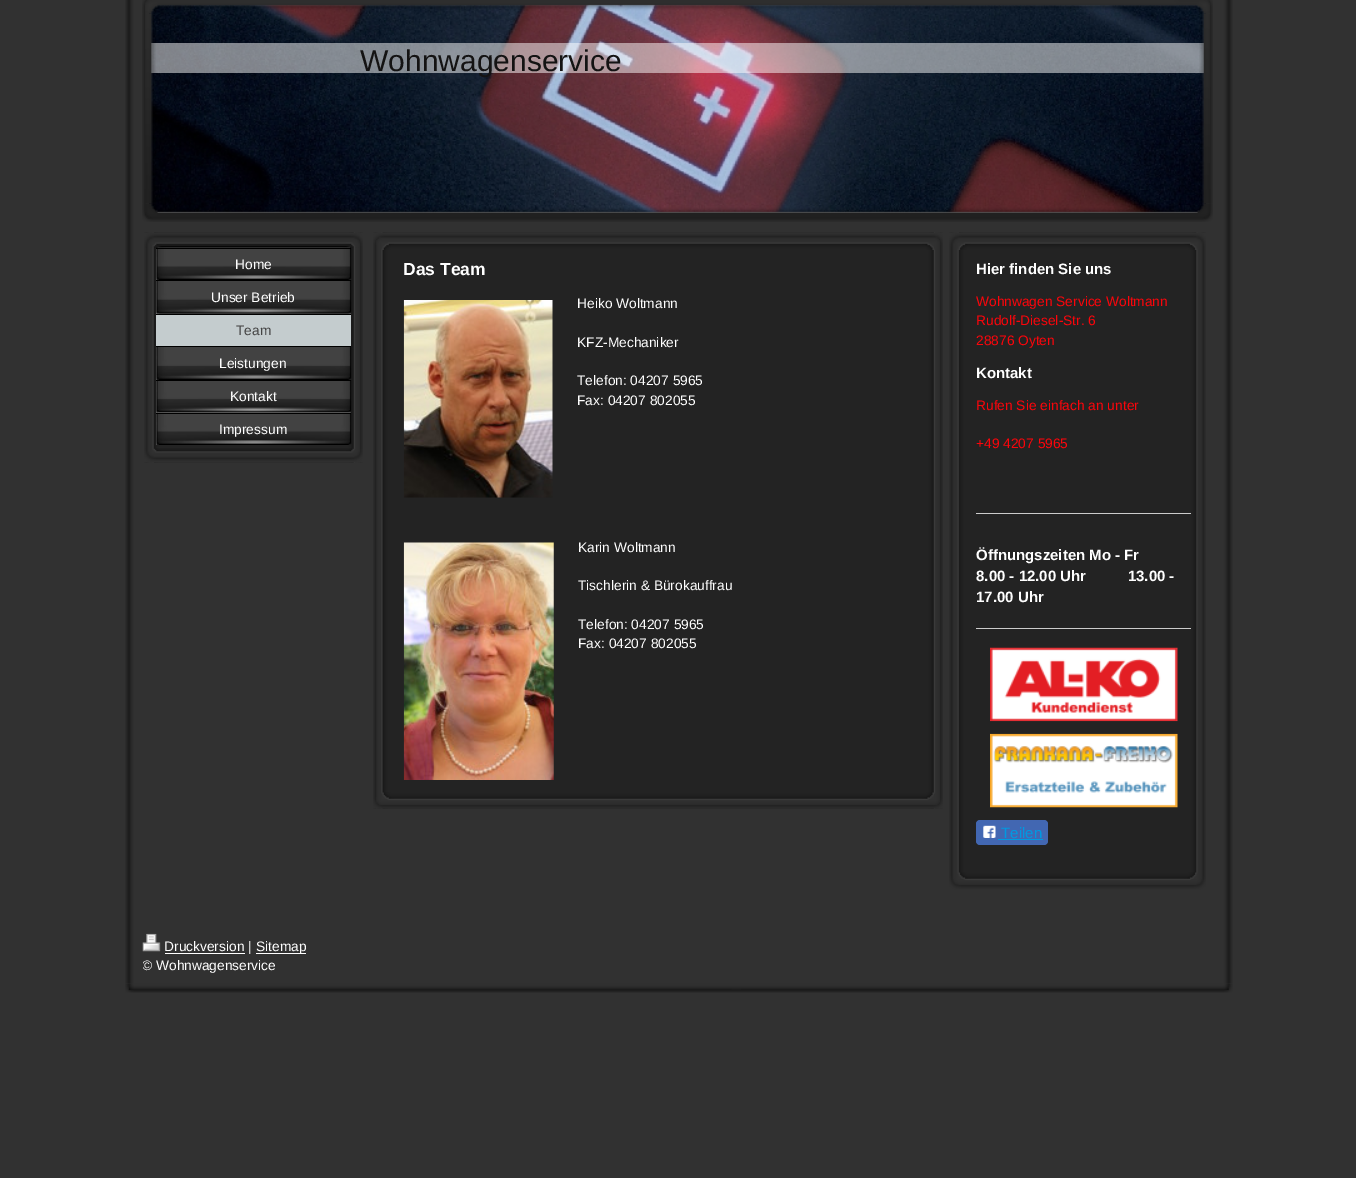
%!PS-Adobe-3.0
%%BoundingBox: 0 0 1356 1178
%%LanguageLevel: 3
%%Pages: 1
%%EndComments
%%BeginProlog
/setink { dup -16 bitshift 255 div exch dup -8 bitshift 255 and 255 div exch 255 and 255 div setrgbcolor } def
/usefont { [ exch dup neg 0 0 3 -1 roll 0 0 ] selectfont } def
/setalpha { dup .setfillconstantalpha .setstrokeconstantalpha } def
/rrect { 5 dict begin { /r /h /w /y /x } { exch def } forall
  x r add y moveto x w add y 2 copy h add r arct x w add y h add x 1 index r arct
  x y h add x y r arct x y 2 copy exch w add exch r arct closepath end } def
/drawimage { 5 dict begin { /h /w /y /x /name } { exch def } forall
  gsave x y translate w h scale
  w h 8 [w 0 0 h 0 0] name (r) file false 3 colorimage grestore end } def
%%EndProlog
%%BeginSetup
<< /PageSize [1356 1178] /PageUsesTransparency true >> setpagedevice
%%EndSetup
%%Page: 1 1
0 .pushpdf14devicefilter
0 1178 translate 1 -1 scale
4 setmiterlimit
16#313131 setink
0 0 1356 1178 rectfill
(img1.raw) 125 0 1108 984 drawimage
(img4.raw) 149 4 1057 209 drawimage
0.5 setalpha
16#FFFFFF setink
151 43 1053 30 rectfill
1 setalpha
(img3.raw) 142 13 14 191 drawimage
(img6.raw) 142 203 1071 19 drawimage
(img5.raw) 1199 13 14 191 drawimage
(img2.raw) 142 0 1071 14 drawimage
/LiberationSans-Regular 30 usefont
16#141313 setink
360 71 moveto (Wohnwagenservice) show
(img7.raw) 144 232 219 231 drawimage
(img8.raw) 144 232 219 16 drawimage
(img9.raw) 156 247 196 33 drawimage
16#000000 setink
156 248 195 1 rectfill
/LiberationSans-Regular 13.75 usefont
16#FFFFFF setink
235 269 moveto (Home) show
16#CCCCCC setink
156 281 195 33 rectfill
(img10.raw) 156 280 196 34 drawimage
16#000000 setink
156 280 195 1 rectfill
16#FFFFFF setink
211 302 moveto (Unser Betrieb) show
16#C4CCCE setink
156 315 195 31 rectfill
16#000000 setink
156 314 195 1 rectfill
16#444444 setink
236 335 moveto (Team) show
(img11.raw) 156 346 196 34 drawimage
16#000000 setink
156 346 195 1 rectfill
16#FFFFFF setink
219 368 moveto (Leistungen) show
16#CCCCCC setink
156 381 195 32 rectfill
(img12.raw) 156 380 196 33 drawimage
16#000000 setink
156 380 195 1 rectfill
16#FFFFFF setink
230 401 moveto (Kontakt) show
(img13.raw) 156 412 196 33 drawimage
16#000000 setink
156 413 195 1 rectfill
16#FFFFFF setink
219 434 moveto (Impressum) show
(img14.raw) 144 448 219 15 drawimage
(img15.raw) 373 232 570 577 drawimage
(img16.raw) 373 232 570 18 drawimage
/LiberationSans-Bold 17.5 usefont
403 275 moveto (Das Team) show
(img17.raw) 403 300 150 198 drawimage
/LiberationSans-Regular 13.75 usefont
[
    [(Heiko Woltmann) 577 308]
    [(KFZ-Mechaniker) 577 347]
    [(Telefon: 04207 5965) 577 385]
    [(Fax: 04207 802055) 577 405]
] { aload pop moveto show } forall
(img18.raw) 403 542 151 238 drawimage
[
    [(Karin Woltmann) 578 552]
    [(Tischlerin & Bürokauffrau) 578 590]
    [(Telefon: 04207 5965) 578 629]
    [(Fax: 04207 802055) 578 648]
] { aload pop moveto show } forall
(img19.raw) 373 792 570 17 drawimage
(img20.raw) 949 232 257 640 drawimage
(img21.raw) 949 232 257 18 drawimage
/LiberationSans-Bold 15 usefont
976 274 moveto (Hier finden Sie uns) show
/LiberationSans-Regular 13.75 usefont
16#FD040A setink
[
    [(Wohnwagen Service Woltmann) 976 306]
    [(Rudolf-Diesel-Str. 6) 976 325]
    [(28876 Oyten) 976 345]
] { aload pop moveto show } forall
/LiberationSans-Bold 15 usefont
16#FFFFFF setink
976 378 moveto (Kontakt) show
/LiberationSans-Regular 13.75 usefont
16#FD040A setink
976 410 moveto (Rufen Sie einfach an unter) show
976 448 moveto (+49 4207 5965) show
16#CCCCCC setink
976 513 215 1 rectfill
/LiberationSans-Bold 15 usefont
16#FFFFFF setink
[
    [(Öffnungszeiten Mo - Fr) 976 560]
    [(8.00 - 12.00 Uhr          13.00 -) 976 581]
    [(17.00 Uhr) 976 602]
] { aload pop moveto show } forall
16#CCCCCC setink
976 628 215 1 rectfill
(img22.raw) 990 647 188 75 drawimage
(img23.raw) 990 733 188 75 drawimage
16#4267B2 setink
976 820 72 25 4 rrect fill
(img24.raw) 983 825 13 13 drawimage
/LiberationSans-Regular 15 usefont
16#0099E1 setink
1001 838 moveto (Teilen) show
998 839 45 1 rectfill
(img25.raw) 949 872 257 18 drawimage
(img26.raw) 142 933 19 19 drawimage
16#FFFFFF setink
165 953 80 1 rectfill
/LiberationSans-Regular 13.75 usefont
164 951 moveto (Druckversion |) show
256 953 50 1 rectfill
256 951 moveto (Sitemap) show
gsave
143 934 1072 41 rectclip
142 970 moveto (© Wohnwagenservice) show
grestore
(img27.raw) 125 984 1108 9 drawimage
.poppdf14devicefilter showpage
%%EOF
